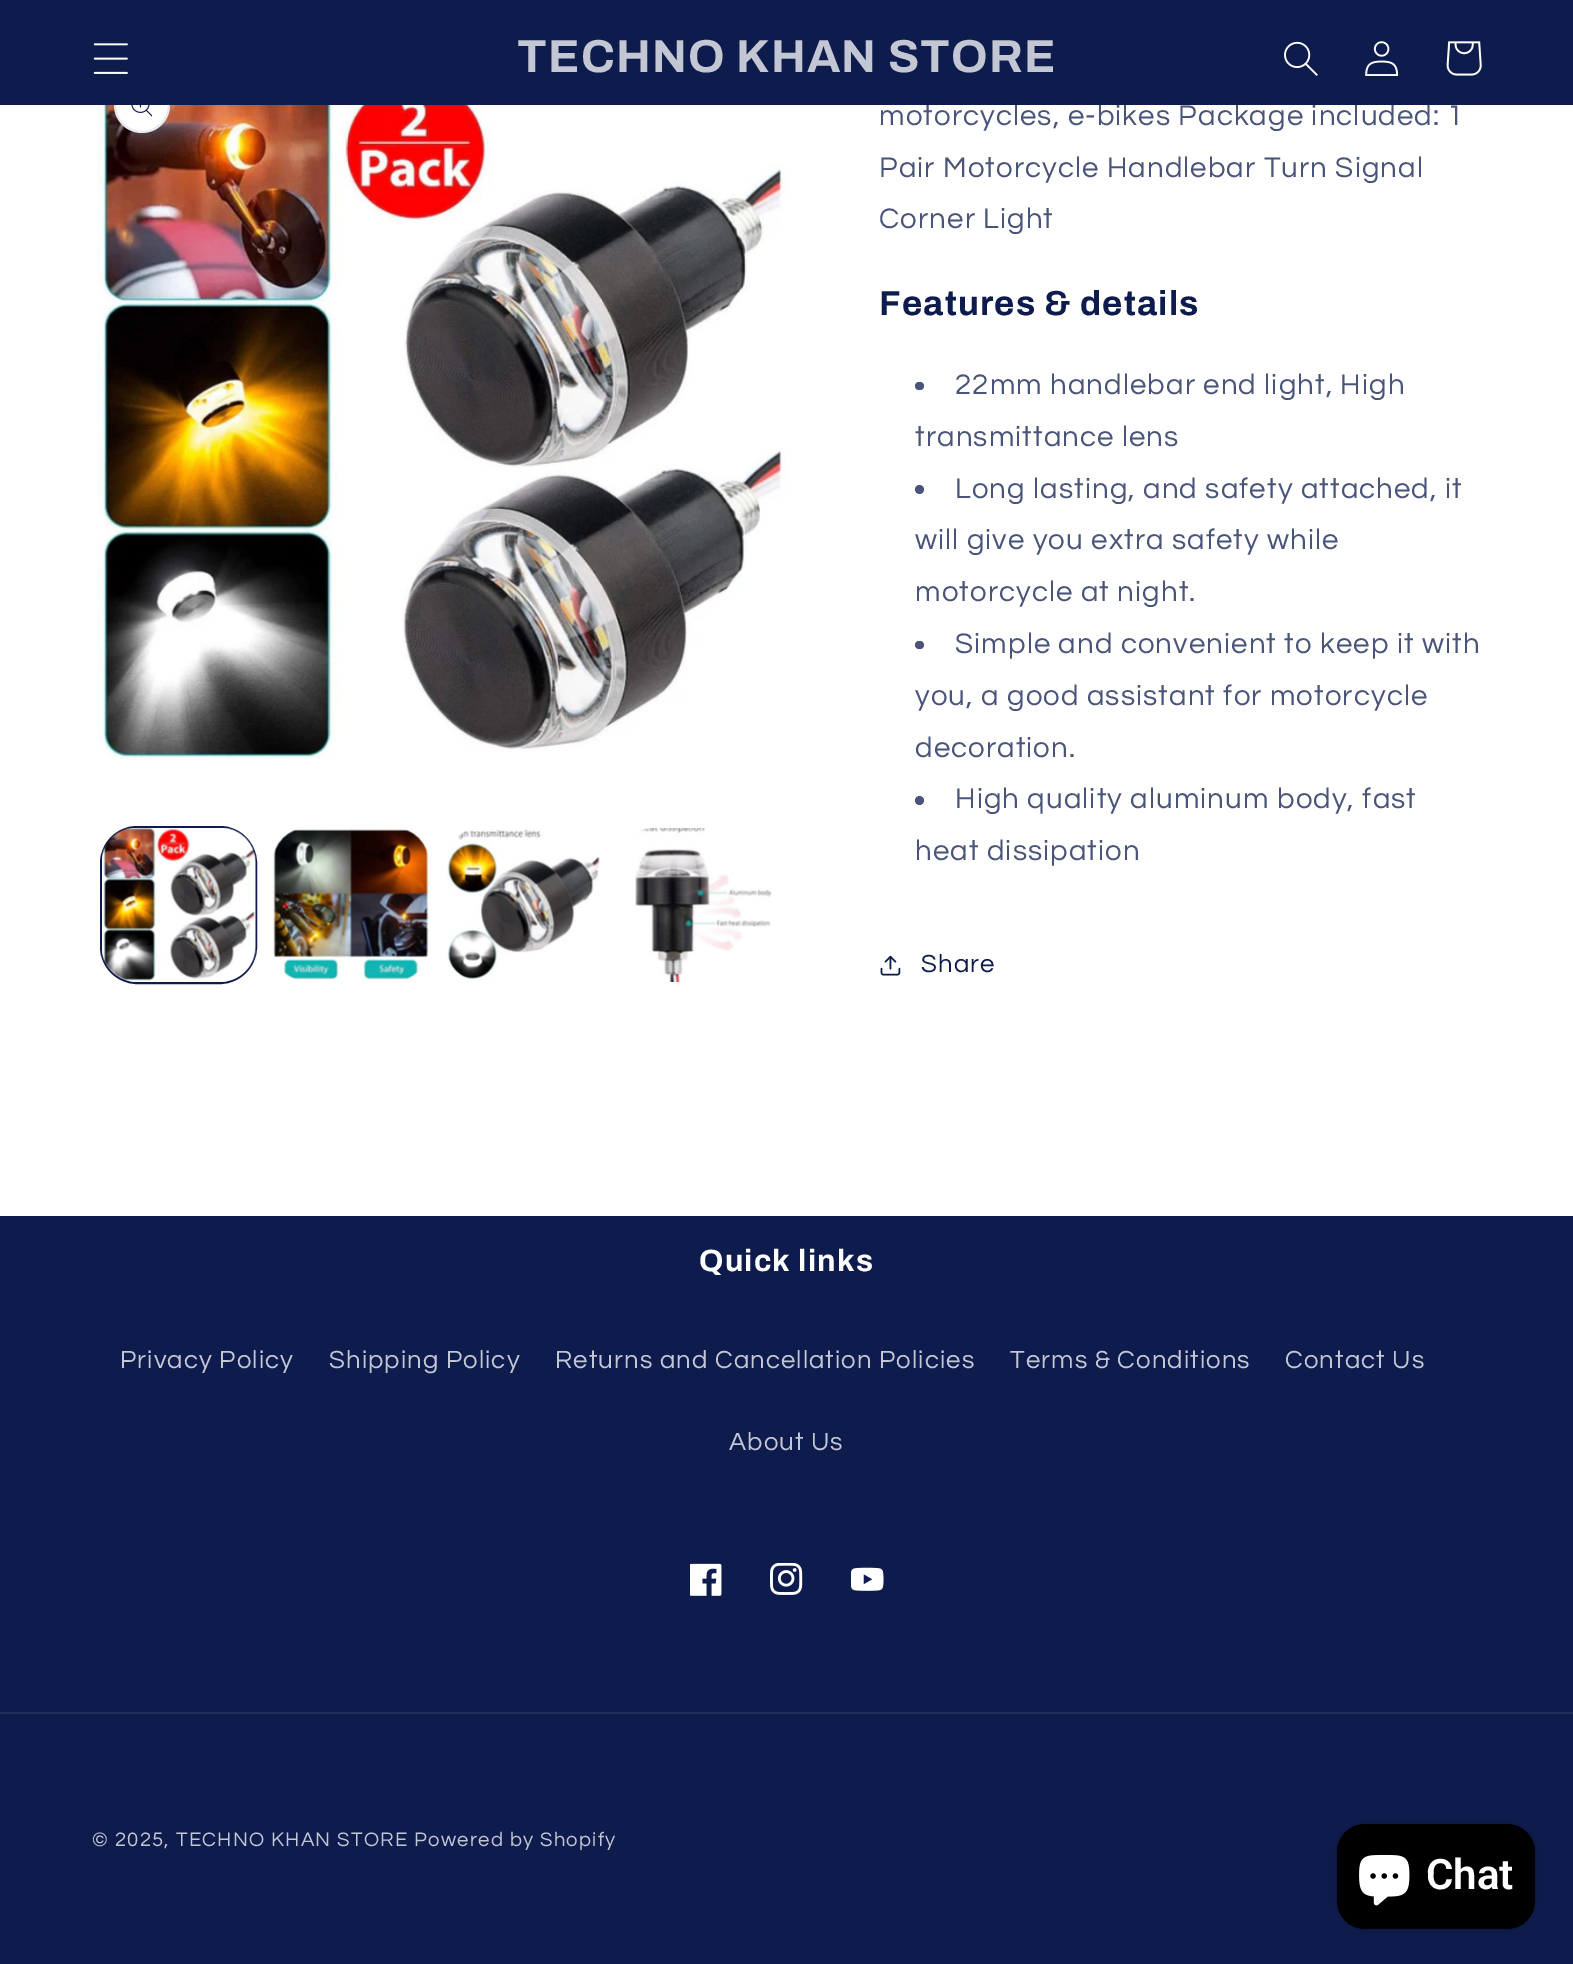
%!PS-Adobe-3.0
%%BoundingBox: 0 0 1573 1964
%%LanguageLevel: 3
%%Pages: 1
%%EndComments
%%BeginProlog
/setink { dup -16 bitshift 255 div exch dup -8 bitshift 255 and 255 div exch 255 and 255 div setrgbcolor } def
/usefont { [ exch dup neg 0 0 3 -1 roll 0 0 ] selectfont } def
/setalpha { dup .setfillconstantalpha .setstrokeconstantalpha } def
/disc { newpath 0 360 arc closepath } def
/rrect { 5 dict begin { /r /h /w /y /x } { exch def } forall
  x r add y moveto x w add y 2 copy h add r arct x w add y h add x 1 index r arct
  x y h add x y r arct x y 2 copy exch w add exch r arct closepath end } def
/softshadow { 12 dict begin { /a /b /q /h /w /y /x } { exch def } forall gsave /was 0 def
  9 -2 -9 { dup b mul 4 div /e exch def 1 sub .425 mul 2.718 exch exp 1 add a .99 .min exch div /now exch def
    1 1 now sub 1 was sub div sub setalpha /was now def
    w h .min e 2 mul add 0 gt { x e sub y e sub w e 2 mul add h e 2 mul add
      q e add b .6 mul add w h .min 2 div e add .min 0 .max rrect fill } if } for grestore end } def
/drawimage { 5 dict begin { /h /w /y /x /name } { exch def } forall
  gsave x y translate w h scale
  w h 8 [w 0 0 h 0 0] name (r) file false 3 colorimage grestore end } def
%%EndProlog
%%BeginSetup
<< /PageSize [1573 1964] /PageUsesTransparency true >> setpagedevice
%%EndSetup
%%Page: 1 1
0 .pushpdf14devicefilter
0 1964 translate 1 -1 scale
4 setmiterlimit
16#FFFFFF setink
0 0 1573 1964 rectfill
(img6.raw) 97 105 691 654 drawimage
142 105 28 disc fill
0.1 setalpha
16#0E1B4D setink
2 setlinewidth
142 105 27 disc stroke
/Questrial-Regular 29.4 usefont
1 setalpha
16#4A547A setink
879 125 moveto 1.1 0 (motorcycles, e-bikes Package included: 1) ashow
16#0E1B4D setink
0 0 1573 105 rectfill
(img1.raw) 93 43 35 31 drawimage
/Archivo-Bold 46.25 usefont
16#C3C6D3 setink
517 72 moveto 1.2 0 (TECHNO KHAN STORE) ashow
(img2.raw) 1284 41 34 35 drawimage
(img3.raw) 1365 41 34 35 drawimage
(img4.raw) 1446 41 36 35 drawimage
(img5.raw) 131 105 21 12 drawimage
16#0E1B4D setink
101 827 155 156 36 rrect stroke
(img7.raw) 102 828 154 154 drawimage
(img8.raw) 273 828 156 152 drawimage
(img9.raw) 447 829 153 151 drawimage
(img10.raw) 635 828 137 154 drawimage
/Questrial-Regular 29.4 usefont
16#4A547A setink
879 177 moveto 1.1 0 (Pair Motorcycle Handlebar Turn Signal) ashow
879 228 moveto 1.1 0 (Corner Light) ashow
/Archivo-Bold 34.75 usefont
16#0E1B4D setink
879 315 moveto 1.2 0 (Features & details) ashow
16#4A547A setink
915 382 9 8 4 rrect fill
/Questrial-Regular 29.4 usefont
955 394 moveto 1.1 0 (22mm handlebar end light, High) ashow
915 446 moveto 1.1 0 (transmittance lens) ashow
919.5 489.5 4.5 disc fill
955 498 moveto 1.1 0 (Long lasting, and safety attached, it) ashow
915 549 moveto 1.1 0 (will give you extra safety while) ashow
915 601 moveto 1.1 0 (motorcycle at night.) ashow
915 641 9 8 4 rrect fill
955 653 moveto 1.1 0 (Simple and convenient to keep it with) ashow
915 705 moveto 1.1 0 (you, a good assistant for motorcycle) ashow
915 757 moveto 1.1 0 (decoration.) ashow
919.5 800.5 4.5 disc fill
955 808 moveto 1.1 0 (High quality aluminum body, fast) ashow
915 860 moveto 1.1 0 (heat dissipation) ashow
(img11.raw) 880 955 21 21 drawimage
/Questrial-Regular 25.75 usefont
16#0E1B4D setink
921 972 moveto 1.1 0 (Share) ashow
0 1216 1573 748 rectfill
/Archivo-Bold 30.75 usefont
16#FFFFFF setink
699 1271 moveto 1.2 0 (Quick links) ashow
/Questrial-Regular 25.75 usefont
16#C3C6D3 setink
120 1368 moveto 1.1 0 (Privacy Policy) ashow
329 1368 moveto 1.1 0 (Shipping Policy) ashow
555 1368 moveto 1.1 0 (Returns and Cancellation Policies) ashow
1010 1368 moveto 1.1 0 (Terms & Conditions) ashow
1285 1368 moveto 1.1 0 (Contact Us) ashow
729 1450 moveto 1.1 0 (About Us) ashow
(img12.raw) 690 1563 32 33 drawimage
(img13.raw) 770 1563 33 32 drawimage
(img14.raw) 851 1567 33 24 drawimage
16#212D5B setink
0 1712 1573 2 rectfill
/Questrial-Regular 20.25 usefont
16#C3C6D3 setink
92 1846 moveto 1.3 0 (© 2025, TECHNO KHAN STORE) ashow
414 1846 moveto 1.3 0 (Powered by Shopify) ashow
16#000000 setink
1337 1824 198 105 28 4.5 0.15 softshadow
1337 1824 198 105 28 rrect fill
(img15.raw) 1359 1855 51 51 drawimage
/Roboto-SemiBold 42 usefont
16#FFFFFF setink
1426 1889 moveto (Chat) show
.poppdf14devicefilter showpage
%%EOF
